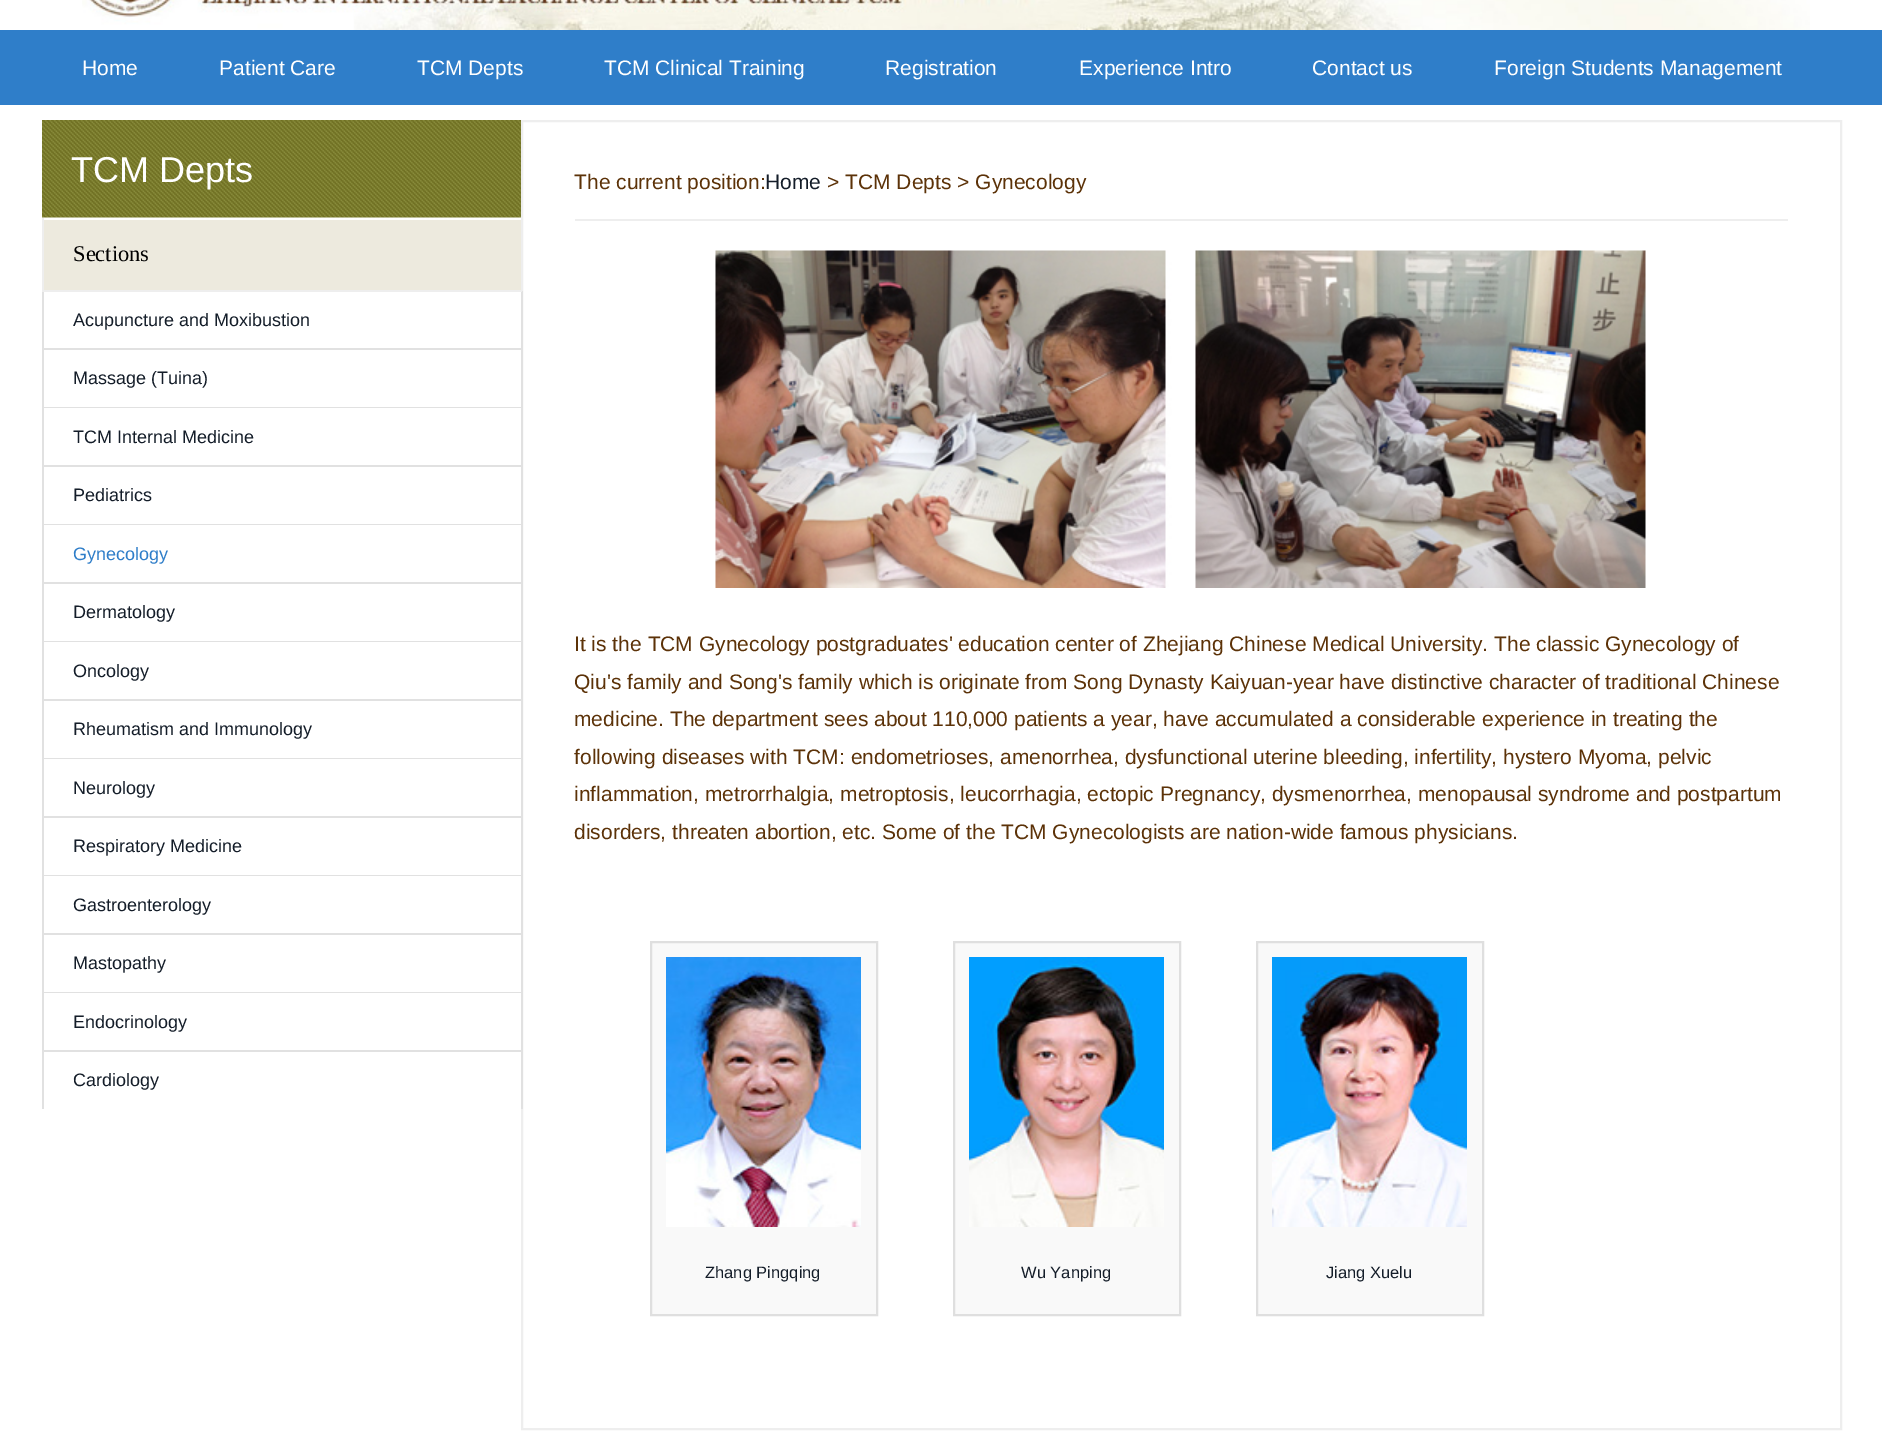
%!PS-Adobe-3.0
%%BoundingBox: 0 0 1882 1434
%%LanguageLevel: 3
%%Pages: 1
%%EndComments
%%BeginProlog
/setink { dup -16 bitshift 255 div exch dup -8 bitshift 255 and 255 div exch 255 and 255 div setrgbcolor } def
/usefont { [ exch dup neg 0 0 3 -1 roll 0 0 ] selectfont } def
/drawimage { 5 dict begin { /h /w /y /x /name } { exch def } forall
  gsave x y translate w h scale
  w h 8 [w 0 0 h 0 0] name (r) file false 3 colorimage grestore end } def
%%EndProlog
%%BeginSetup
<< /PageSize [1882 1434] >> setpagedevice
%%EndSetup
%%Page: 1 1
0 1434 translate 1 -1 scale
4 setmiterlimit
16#FFFFFF setink
0 0 1882 1434 rectfill
(img1.raw) 82 0 1728 30 drawimage
16#2F7EC9 setink
0 30 1882 75 rectfill
/LiberationSans-Regular 21 usefont
16#FFFFFF setink
[
    [(Home) 82 75]
    [(Patient Care) 219 75]
    [(TCM Depts) 417 75]
    [(TCM Clinical Training) 604 75]
    [(Registration) 885 75]
    [(Experience Intro) 1079 75]
    [(Contact us) 1312 75]
    [(Foreign Students Management) 1494 75]
] { aload pop moveto show } forall
(img2.raw) 42 120 479 98 drawimage
/LiberationSans-Regular 36 usefont
71 182 moveto (TCM Depts) show
16#EDEADE setink
44 220 477 70 rectfill
16#EEEEEE setink
2 setlinewidth
522 121 1319 1308 rectstroke
[
    [521 218 1 2 16#FFFFFF]
    [521 218 1 2 16#EEEEEE]
    [521 291 2 818 16#E1E1E1]
    [42 291 2 818 16#E1E1E1]
    [42 290 480 2 16#EEEEEE]
    [42 218 2 73 16#EEEEEE]
] { aload pop setink rectfill } forall
/LiberationSerif-Regular 22.5 usefont
16#000000 setink
73 261 moveto (Sections) show
16#E1E1E1 setink
44 348 477 2 rectfill
/LiberationSans-Regular 18 usefont
16#141D29 setink
73 326 moveto (Acupuncture and Moxibustion) show
16#E1E1E1 setink
44 407 477 1 rectfill
16#141D29 setink
73 384 moveto (Massage \(Tuina\)) show
16#E1E1E1 setink
44 465 477 2 rectfill
16#141D29 setink
73 443 moveto (TCM Internal Medicine) show
16#E1E1E1 setink
44 524 477 1 rectfill
16#141D29 setink
73 501 moveto (Pediatrics) show
16#E1E1E1 setink
44 582 477 2 rectfill
16#2F7EC9 setink
73 560 moveto (Gynecology) show
16#E1E1E1 setink
44 641 477 1 rectfill
16#141D29 setink
73 618 moveto (Dermatology) show
16#E1E1E1 setink
44 699 477 2 rectfill
16#141D29 setink
73 677 moveto (Oncology) show
16#E1E1E1 setink
44 758 477 1 rectfill
16#141D29 setink
73 735 moveto (Rheumatism and Immunology) show
16#E1E1E1 setink
44 816 477 2 rectfill
16#141D29 setink
73 794 moveto (Neurology) show
16#E1E1E1 setink
44 875 477 1 rectfill
16#141D29 setink
73 852 moveto (Respiratory Medicine) show
16#E1E1E1 setink
44 933 477 2 rectfill
16#141D29 setink
73 911 moveto (Gastroenterology) show
16#E1E1E1 setink
44 992 477 1 rectfill
16#141D29 setink
73 969 moveto (Mastopathy) show
16#E1E1E1 setink
44 1050 477 2 rectfill
16#141D29 setink
73 1028 moveto (Endocrinology) show
73 1086 moveto (Cardiology) show
16#EEEEEE setink
575 219 1213 2 rectfill
/LiberationSans-Regular 21 usefont
16#5C3208 setink
574 189 moveto (The current position:) show
16#141D29 setink
765 189 moveto (Home) show
16#5C3208 setink
827 189 moveto (> TCM Depts > Gynecology) show
(img3.raw) 715 250 931 338 drawimage
[
    [(It is the TCM Gynecology postgraduates' education center of Zhejiang Chinese Medical University. The classic Gynecology of) 574 651]
    [(Qiu's family and Song's family which is originate from Song Dynasty Kaiyuan-year have distinctive character of traditional Chinese) 574 689]
    [(medicine. The department sees about 110,000 patients a year, have accumulated a considerable experience in treating the) 574 726]
    [(following diseases with TCM: endometrioses, amenorrhea, dysfunctional uterine bleeding, infertility, hystero Myoma, pelvic) 574 764]
    [(inflammation, metrorrhalgia, metroptosis, leucorrhagia, ectopic Pregnancy, dysmenorrhea, menopausal syndrome and postpartum) 574 801]
    [(disorders, threaten abortion, etc. Some of the TCM Gynecologists are nation-wide famous physicians.) 574 839]
] { aload pop moveto show } forall
16#F9F9F9 setink
651 942 moveto 877 942 lineto 877 1315 lineto 651 1315 lineto closepath gsave fill grestore
16#DFDFDF setink
stroke
(img4.raw) 666 957 195 270 drawimage
/LiberationSans-Regular 16.5 usefont
16#141D29 setink
705 1278 moveto (Zhang Pingqing) show
16#F9F9F9 setink
954 942 moveto 1180 942 lineto 1180 1315 lineto 954 1315 lineto closepath gsave fill grestore
16#DFDFDF setink
stroke
(img5.raw) 969 957 195 270 drawimage
16#141D29 setink
1021 1278 moveto (Wu Yanping) show
16#F9F9F9 setink
1257 942 moveto 1483 942 lineto 1483 1315 lineto 1257 1315 lineto closepath gsave fill grestore
16#DFDFDF setink
stroke
(img6.raw) 1272 957 195 270 drawimage
16#141D29 setink
1326 1278 moveto (Jiang Xuelu) show
showpage
%%EOF
